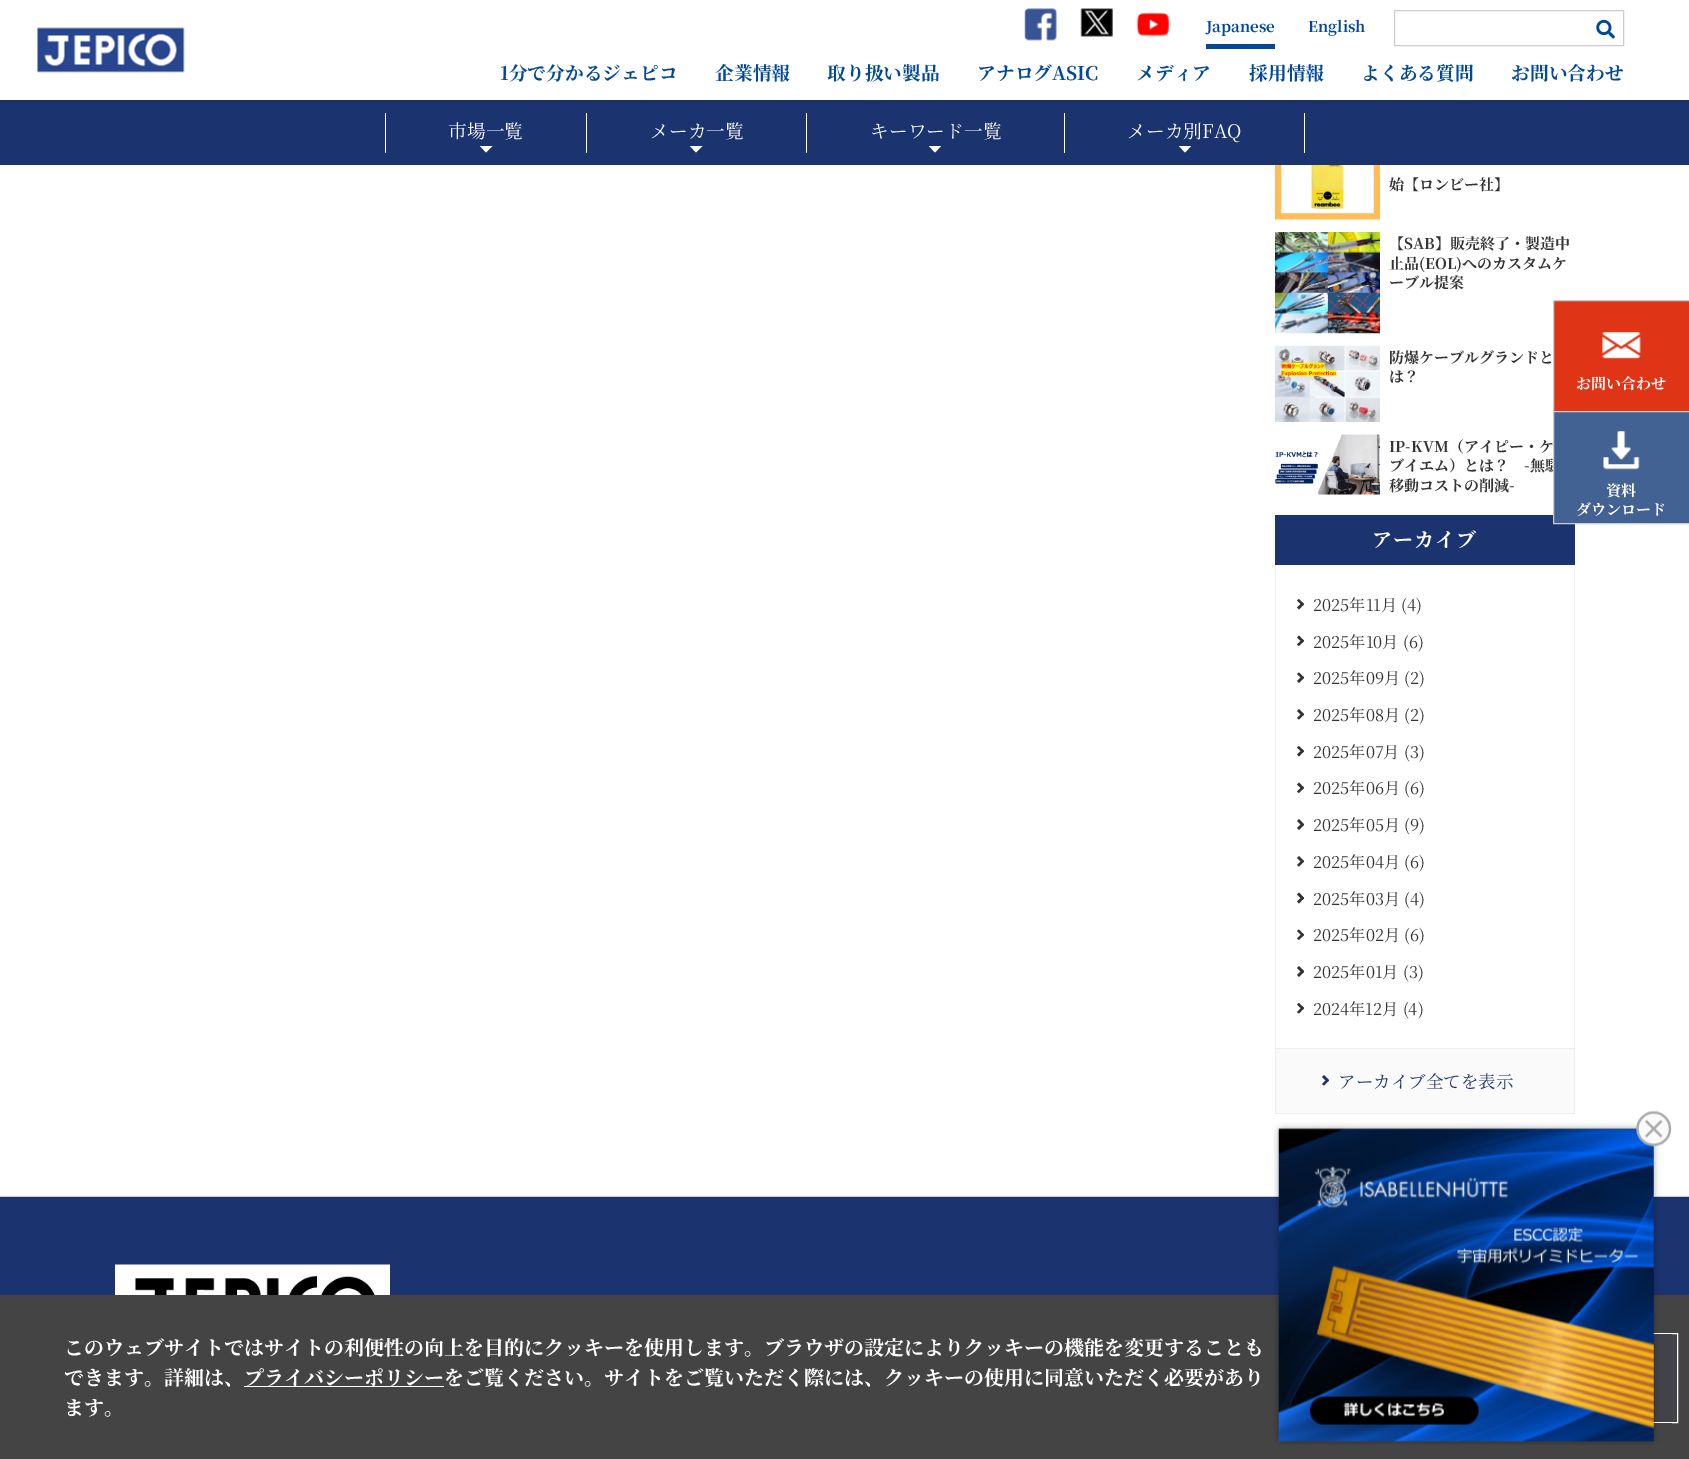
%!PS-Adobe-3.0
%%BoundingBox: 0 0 1689 1459
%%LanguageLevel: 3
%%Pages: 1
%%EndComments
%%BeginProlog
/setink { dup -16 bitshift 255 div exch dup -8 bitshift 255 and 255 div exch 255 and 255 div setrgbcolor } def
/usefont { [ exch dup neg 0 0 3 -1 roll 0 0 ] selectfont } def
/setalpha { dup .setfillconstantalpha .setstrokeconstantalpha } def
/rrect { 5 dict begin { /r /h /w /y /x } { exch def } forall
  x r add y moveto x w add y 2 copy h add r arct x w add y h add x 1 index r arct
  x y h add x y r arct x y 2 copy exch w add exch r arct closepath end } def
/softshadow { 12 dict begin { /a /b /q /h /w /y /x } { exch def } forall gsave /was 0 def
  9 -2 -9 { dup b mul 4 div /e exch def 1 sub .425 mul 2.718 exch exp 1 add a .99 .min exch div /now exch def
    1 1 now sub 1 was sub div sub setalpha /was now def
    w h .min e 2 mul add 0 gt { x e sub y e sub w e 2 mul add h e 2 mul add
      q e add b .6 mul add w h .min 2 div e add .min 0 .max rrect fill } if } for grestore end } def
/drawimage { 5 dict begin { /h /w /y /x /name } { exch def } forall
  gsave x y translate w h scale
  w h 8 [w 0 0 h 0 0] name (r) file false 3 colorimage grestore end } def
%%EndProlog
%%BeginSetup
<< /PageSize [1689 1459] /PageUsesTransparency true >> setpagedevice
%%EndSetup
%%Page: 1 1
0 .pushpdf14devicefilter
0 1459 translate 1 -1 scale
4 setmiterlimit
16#FFFFFF setink
0 0 1689 1459 rectfill
16#1B336F setink
0 100 1689 65 rectfill
16#000000 setink
0 3 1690 100 0 3 0.05 softshadow
16#FFFFFF setink
0 0 1689 100 rectfill
(img1.raw) 37 27 148 46 drawimage
(img2.raw) 1024 8 33 33 drawimage
(img3.raw) 1080 8 33 29 drawimage
(img4.raw) 1136 12 33 25 drawimage
/NotoSerifJP-Bold 15 usefont
16#004898 setink
1206 32 moveto (Japanese) show
1206 44 69 5 rectfill
1308 32 moveto (English) show
16#CCCCCC setink
1394.5 10.5 229 35 rectstroke
(img5.raw) 1596 19 19 20 drawimage
/NotoSerifJP-Bold 18.75 usefont
16#004898 setink
[
    [(1分で分かるジェピコ) 500 80]
    [(企業情報) 715 80]
    [(取り扱い製品) 827 80]
    [(アナログASIC) 977 80]
    [(メディア) 1136 80]
    [(採用情報) 1249 80]
    [(よくある質問) 1361 80]
    [(お問い合わせ) 1511 80]
] { aload pop moveto show } forall
16#FFFFFF setink
385 113 1 40 rectfill
/NotoSerifJP-Regular 18.75 usefont
448 138 moveto (市場一覧) show
480 146 moveto 492.5 146 lineto 486 152.5 lineto closepath fill
586 113 1 40 rectfill
650 138 moveto (メーカ一覧) show
690 146 moveto 702.5 146 lineto 696 152.5 lineto closepath fill
806 113 1 40 rectfill
870 138 moveto (キーワード一覧) show
929 146 moveto 941 146 lineto 935 152.5 lineto closepath fill
1304 113 1 40 rectfill
1064 113 1 40 rectfill
1127 138 moveto (メーカ別FAQ) show
1179 146 moveto 1191 146 lineto 1185 152.5 lineto closepath fill
(img6.raw) 1275 165 105 55 drawimage
/NotoSerifJP-Bold 15 usefont
16#333333 setink
1389 190 moveto (始【ロンビー社】) show
(img7.raw) 1275 232 105 102 drawimage
[
    [(【SAB】販売終了・製造中) 1389 249]
    [(止品\(EOL\)へのカスタムケ) 1389 269]
    [(ーブル提案) 1389 288]
] { aload pop moveto show } forall
(img8.raw) 1275 345 105 77 drawimage
1389 363 moveto (防爆ケーブルグランドと) show
1389 382 moveto (は？) show
(img9.raw) 1275 434 105 61 drawimage
[
    [(IP-KVM（アイピー・ケ) 1389 452]
    [(ブイエム）とは？　-無駄) 1389 471]
    [(移動コストの削減-) 1389 491]
] { aload pop moveto show } forall
16#1B336F setink
1275 515 300 50 rectfill
/NotoSerifJP-Bold 20 usefont
16#FFFFFF setink
1372 547 moveto 1 0 (アーカイブ) ashow
[
    [1574 565 1 549 16#EEEEEE]
    [1275 1048 300 1 16#EEEEEE]
    [1275 565 1 484 16#EEEEEE]
] { aload pop setink rectfill } forall
16#333333 setink
1299 599 moveto 1304 604 lineto 1302.5 606 lineto 1297 600.5 lineto closepath fill
1302.5 602.5 moveto 1304 604 lineto 1299 609.5 lineto 1297 607.5 lineto closepath fill
/NotoSerifJP-Regular 16.25 usefont
1313 611 moveto (2025年11月 \(4\)) show
1299 635.5 moveto 1304 641 lineto 1302.5 642.5 lineto 1297 637.5 lineto closepath fill
1302.5 639 moveto 1304 641 lineto 1299 646 lineto 1297 644.5 lineto closepath fill
1313 648 moveto (2025年10月 \(6\)) show
1299 672.5 moveto 1304 677.5 lineto 1302.5 679.5 lineto 1297 674 lineto closepath fill
1302.5 676 moveto 1304 677.5 lineto 1299 683 lineto 1297 681 lineto closepath fill
1313 684 moveto (2025年09月 \(2\)) show
1299 709 moveto 1304 714.5 lineto 1302.5 716 lineto 1297 711 lineto closepath fill
1302.5 712.5 moveto 1304 714.5 lineto 1299 719.5 lineto 1297 718 lineto closepath fill
1313 721 moveto (2025年08月 \(2\)) show
1299 746 moveto 1304 751 lineto 1302.5 753 lineto 1297 747.5 lineto closepath fill
1302.5 749.5 moveto 1304 751 lineto 1299 756.5 lineto 1297 754.5 lineto closepath fill
1313 758 moveto (2025年07月 \(3\)) show
1299 782.5 moveto 1304 788 lineto 1302.5 789.5 lineto 1297 784.5 lineto closepath fill
1302.5 786 moveto 1304 788 lineto 1299 793 lineto 1297 791.5 lineto closepath fill
1313 794 moveto (2025年06月 \(6\)) show
1299 819 moveto 1304 824.5 lineto 1302.5 826.5 lineto 1297 821 lineto closepath fill
1302.5 823 moveto 1304 824.5 lineto 1299 830 lineto 1297 828 lineto closepath fill
1313 831 moveto (2025年05月 \(9\)) show
1299 856 moveto 1304 861.5 lineto 1302.5 863 lineto 1297 858 lineto closepath fill
1302.5 859.5 moveto 1304 861.5 lineto 1299 866.5 lineto 1297 865 lineto closepath fill
1313 868 moveto (2025年04月 \(6\)) show
1299 892.5 moveto 1304 898 lineto 1302.5 900 lineto 1297 894.5 lineto closepath fill
1302.5 896.5 moveto 1304 898 lineto 1299 903.5 lineto 1297 901.5 lineto closepath fill
1313 905 moveto (2025年03月 \(4\)) show
1299 929.5 moveto 1304 935 lineto 1302.5 936.5 lineto 1297 931 lineto closepath fill
1302.5 933 moveto 1304 935 lineto 1299 940 lineto 1297 938.5 lineto closepath fill
1313 941 moveto (2025年02月 \(6\)) show
1299 966 moveto 1304 971.5 lineto 1302.5 973.5 lineto 1297 968 lineto closepath fill
1302.5 969.5 moveto 1304 971.5 lineto 1299 977 lineto 1297 975 lineto closepath fill
1313 978 moveto (2025年01月 \(3\)) show
1299 1003 moveto 1304 1008 lineto 1302.5 1010 lineto 1297 1004.5 lineto closepath fill
1302.5 1006.5 moveto 1304 1008 lineto 1299 1013.5 lineto 1297 1012 lineto closepath fill
1313 1015 moveto (2024年12月 \(4\)) show
[
    [1276 1049 298 64 16#FAFAFA]
    [1275 1113 300 1 16#EEEEEE]
    [1275 1049 1 65 16#EEEEEE]
] { aload pop setink rectfill } forall
16#1B336F setink
1324 1075 moveto 1329 1080.5 lineto 1327.5 1082 lineto 1322 1077 lineto closepath fill
1327.5 1078.5 moveto 1329 1080.5 lineto 1324 1085.5 lineto 1322 1084 lineto closepath fill
/NotoSerifJP-Regular 17.5 usefont
1338 1088 moveto (アーカイブ全てを表示) show
16#DF3416 setink
1554 301 135 110 rectfill
16#CCCCCC setink
1553.5 300.5 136 112 rectstroke
(img10.raw) 1602 332 39 27 drawimage
/NotoSerifJP-Bold 15 usefont
16#FFFFFF setink
1576 389 moveto (お問い合わせ) show
16#426293 setink
1553.5 411.5 moveto 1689.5 411.5 lineto 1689.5 523.5 lineto 1553.5 523.5 lineto closepath gsave fill grestore
16#CCCCCC setink
stroke
(img11.raw) 1603 431 37 39 drawimage
16#FFFFFF setink
1606 496 moveto (資料) show
1576 515 moveto (ダウンロード) show
[
    [0 1197 1689 98 16#1B336F]
    [0 1196 1689 1 16#CCCCCC]
    [0 1295 1689 164 16#444444]
] { aload pop setink rectfill } forall
(img14.raw) 1653 1334 24 88 drawimage
16#FFFFFF setink
1588.5 1333.5 89 89 rectstroke
(img12.raw) 1273 1110 399 335 drawimage
(img13.raw) 115 1264 275 31 drawimage
/NotoSerifJP-Bold 20 usefont
64 1355 moveto (このウェブサイトではサイトの利便性の向上を目的にクッキーを使用します。ブラウザの設定によりクッキーの機能を変更することも) show
64 1385 moveto (できます。詳細は、) show
244 1386 200 1 rectfill
244 1385 moveto (プライバシーポリシーをご覧ください。サイトをご覧いただく際には、クッキーの使用に同意いただく必要があり) show
64 1415 moveto (ます。) show
.poppdf14devicefilter showpage
%%EOF
